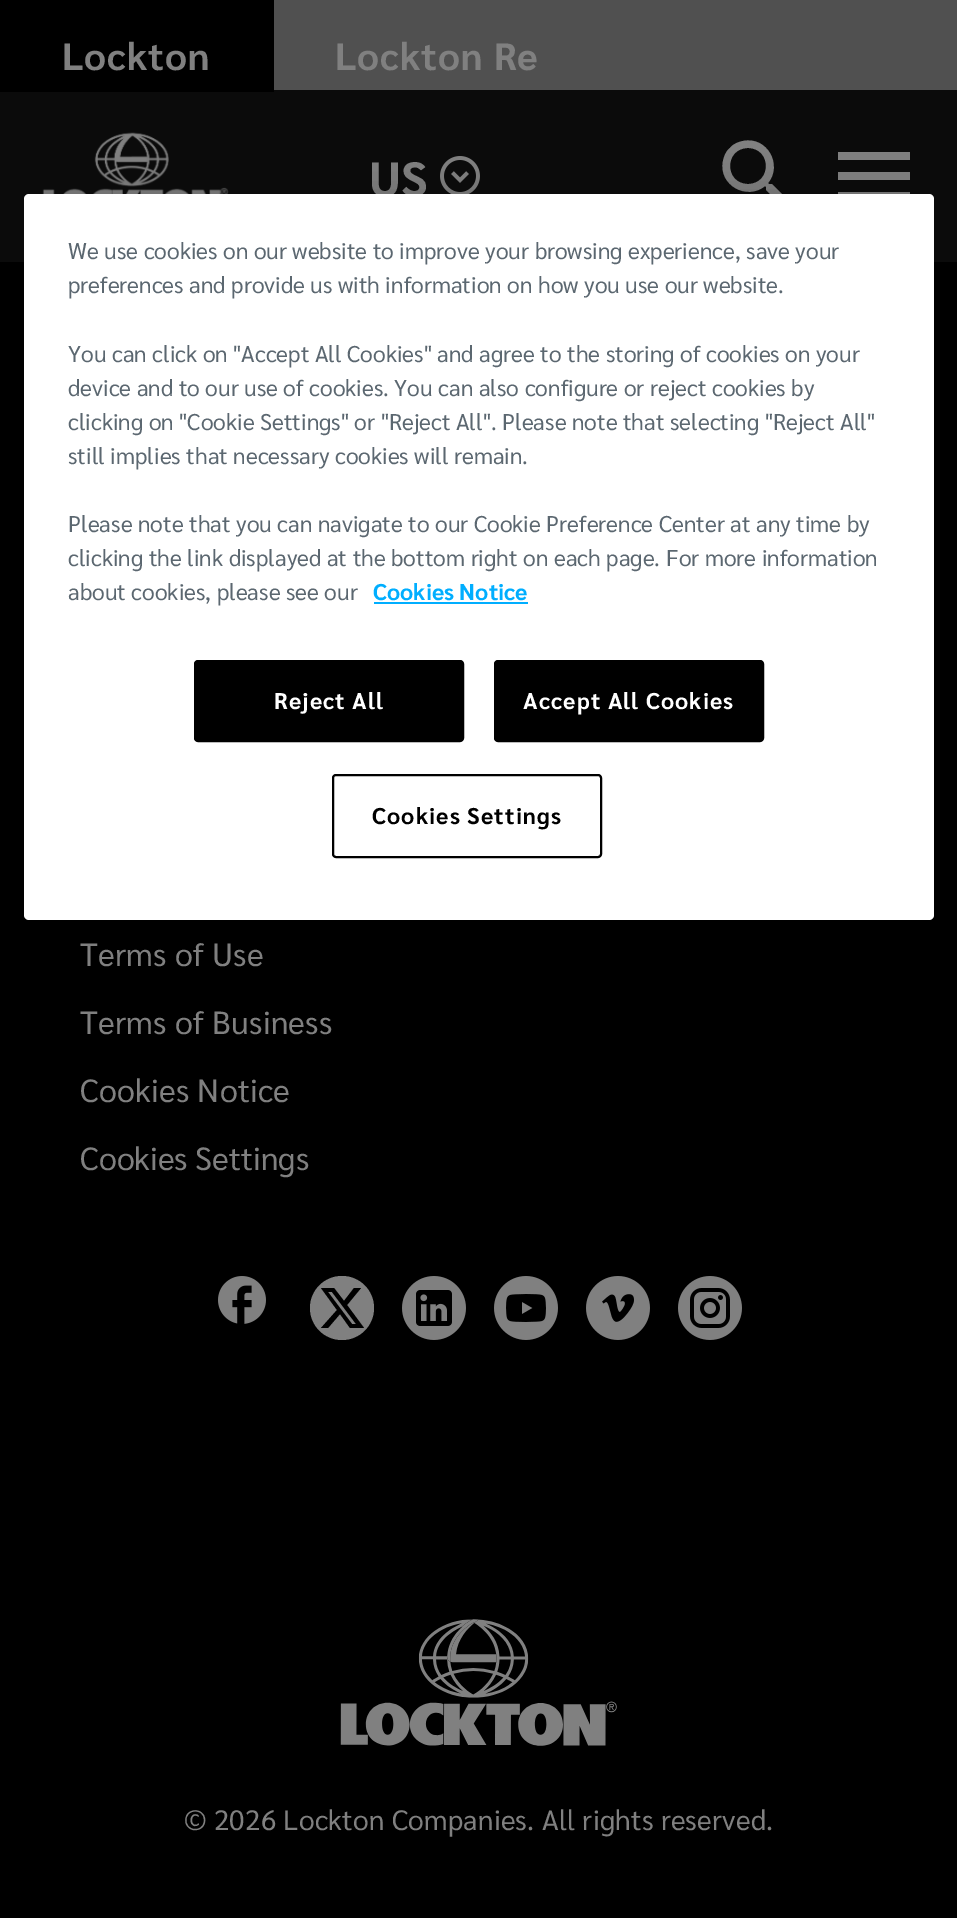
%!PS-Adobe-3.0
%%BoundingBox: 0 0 957 1918
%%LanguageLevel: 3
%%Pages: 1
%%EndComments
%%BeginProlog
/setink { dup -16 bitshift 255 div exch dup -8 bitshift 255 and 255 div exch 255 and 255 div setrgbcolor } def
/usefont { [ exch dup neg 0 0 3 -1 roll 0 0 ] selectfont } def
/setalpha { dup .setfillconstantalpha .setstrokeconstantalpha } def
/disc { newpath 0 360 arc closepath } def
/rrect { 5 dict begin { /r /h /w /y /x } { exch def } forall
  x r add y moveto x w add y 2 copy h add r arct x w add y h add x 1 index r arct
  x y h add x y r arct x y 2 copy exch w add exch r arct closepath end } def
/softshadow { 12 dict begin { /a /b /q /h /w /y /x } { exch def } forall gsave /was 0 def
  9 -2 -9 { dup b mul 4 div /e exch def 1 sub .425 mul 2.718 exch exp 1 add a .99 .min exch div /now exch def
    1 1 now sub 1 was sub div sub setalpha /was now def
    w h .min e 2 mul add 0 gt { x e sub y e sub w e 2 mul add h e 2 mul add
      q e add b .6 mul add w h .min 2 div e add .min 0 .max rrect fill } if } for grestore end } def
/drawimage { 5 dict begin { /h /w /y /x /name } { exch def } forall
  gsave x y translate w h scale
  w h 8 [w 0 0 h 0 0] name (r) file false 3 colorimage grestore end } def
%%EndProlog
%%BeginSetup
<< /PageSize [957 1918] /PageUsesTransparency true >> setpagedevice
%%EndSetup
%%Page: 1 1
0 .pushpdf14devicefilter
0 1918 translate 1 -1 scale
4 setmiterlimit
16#000000 setink
0 0 957 1918 rectfill
[
    [0 90 957 172 16#0B0B0B]
    [274 0 683 90 16#505050]
    [0 90 274 2 16#000000]
] { aload pop setink rectfill } forall
/Sarabun-Bold 38 usefont
16#808080 setink
62 70 moveto 1 0 (Lockton) ashow
335 70 moveto 1 0 (Lockton Re) ashow
(img1.raw) 42 132 187 62 drawimage
/Sarabun-Bold 48 usefont
369 196 moveto (US) show
(img2.raw) 440 156 40 38 drawimage
772 184 moveto 769 184 lineto 768 183 lineto 783 165 767 136 743 141 curveto 738 142 733 144 730 148 curveto 726 151 724 156 723 161 curveto 718 185 747 201 765 186 curveto 766 187 lineto 766 190 lineto 786 210 lineto 792 204 lineto closepath 748 184 moveto 724 184 724 148 748 148 curveto 772 148 772 184 748 184 curveto closepath fill
838 200 moveto 910 200 lineto 910 192 lineto 838 192 lineto closepath 838 180 moveto 910 180 lineto 910 172 lineto 838 172 lineto closepath 838 152 moveto 838 160 lineto 910 160 lineto 910 152 lineto closepath fill
/Sarabun-Regular 32 usefont
80 966 moveto 0.25 0 (Terms of Use) ashow
80 1034 moveto 0.25 0 (Terms of Business) ashow
80 1102 moveto 0.25 0 (Cookies Notice) ashow
80 1170 moveto (Cookies Settings) show
(img3.raw) 218 1276 48 48 drawimage
342 1308 32 disc fill
16#000000 setink
354 1288 moveto 361 1288 lineto 347 1305 lineto 364 1328 lineto 350 1328 lineto 340 1314 lineto 328 1328 lineto 321 1328 lineto 337 1310 lineto 321 1288 lineto 334 1288 lineto 344 1301 lineto closepath 352 1324 moveto 356 1324 lineto 332 1292 lineto 328 1292 lineto closepath fill
(img4.raw) 402 1276 64 64 drawimage
(img5.raw) 494 1276 64 64 drawimage
(img6.raw) 586 1276 64 64 drawimage
(img7.raw) 678 1276 64 64 drawimage
(img8.raw) 340 1619 277 127 drawimage
/Sarabun-Regular 28 usefont
16#808080 setink
184 1830 moveto 0.25 0 (© 2026 Lockton Companies. All rights reserved.) ashow
16#000000 setink
24 194 910 726 5 18 0.2 softshadow
16#FFFFFF setink
24 194 910 726 5 rrect fill
/Sarabun-Regular 22.75 usefont
16#5B6770 setink
[
    [(We use cookies on our website to improve your browsing experience, save your) 68 259]
    [(preferences and provide us with information on how you use our website.) 68 293]
    [(You can click on "Accept All Cookies" and agree to the storing of cookies on your) 68 362]
    [(device and to our use of cookies. You can also configure or reject cookies by) 68 396]
    [(clicking on "Cookie Settings" or "Reject All". Please note that selecting "Reject All") 68 430]
    [(still implies that necessary cookies will remain.) 68 464]
    [(Please note that you can navigate to our Cookie Preference Center at any time by) 68 532]
    [(clicking the link displayed at the bottom right on each page.) 68 566]
    [(For more information) 666 566]
    [(about cookies, please see our) 68 600]
] { aload pop moveto show } forall
/Sarabun-Bold 22.75 usefont
16#00AEFF setink
373 600 moveto (Cookies Notice) show
374 602 154 2 rectfill
16#000000 setink
195 661 268 80 3 rrect gsave fill grestore
2 setlinewidth
stroke
16#FFFFFF setink
274 709 moveto 1.1 0 (Reject All) ashow
16#000000 setink
495 661 268 80 3 rrect gsave fill grestore
stroke
16#FFFFFF setink
523 709 moveto 1.1 0 (Accept All Cookies) ashow
16#000000 setink
333 775 268 82 3 rrect stroke
372 824 moveto 1.1 0 (Cookies Settings) ashow
.poppdf14devicefilter showpage
%%EOF
